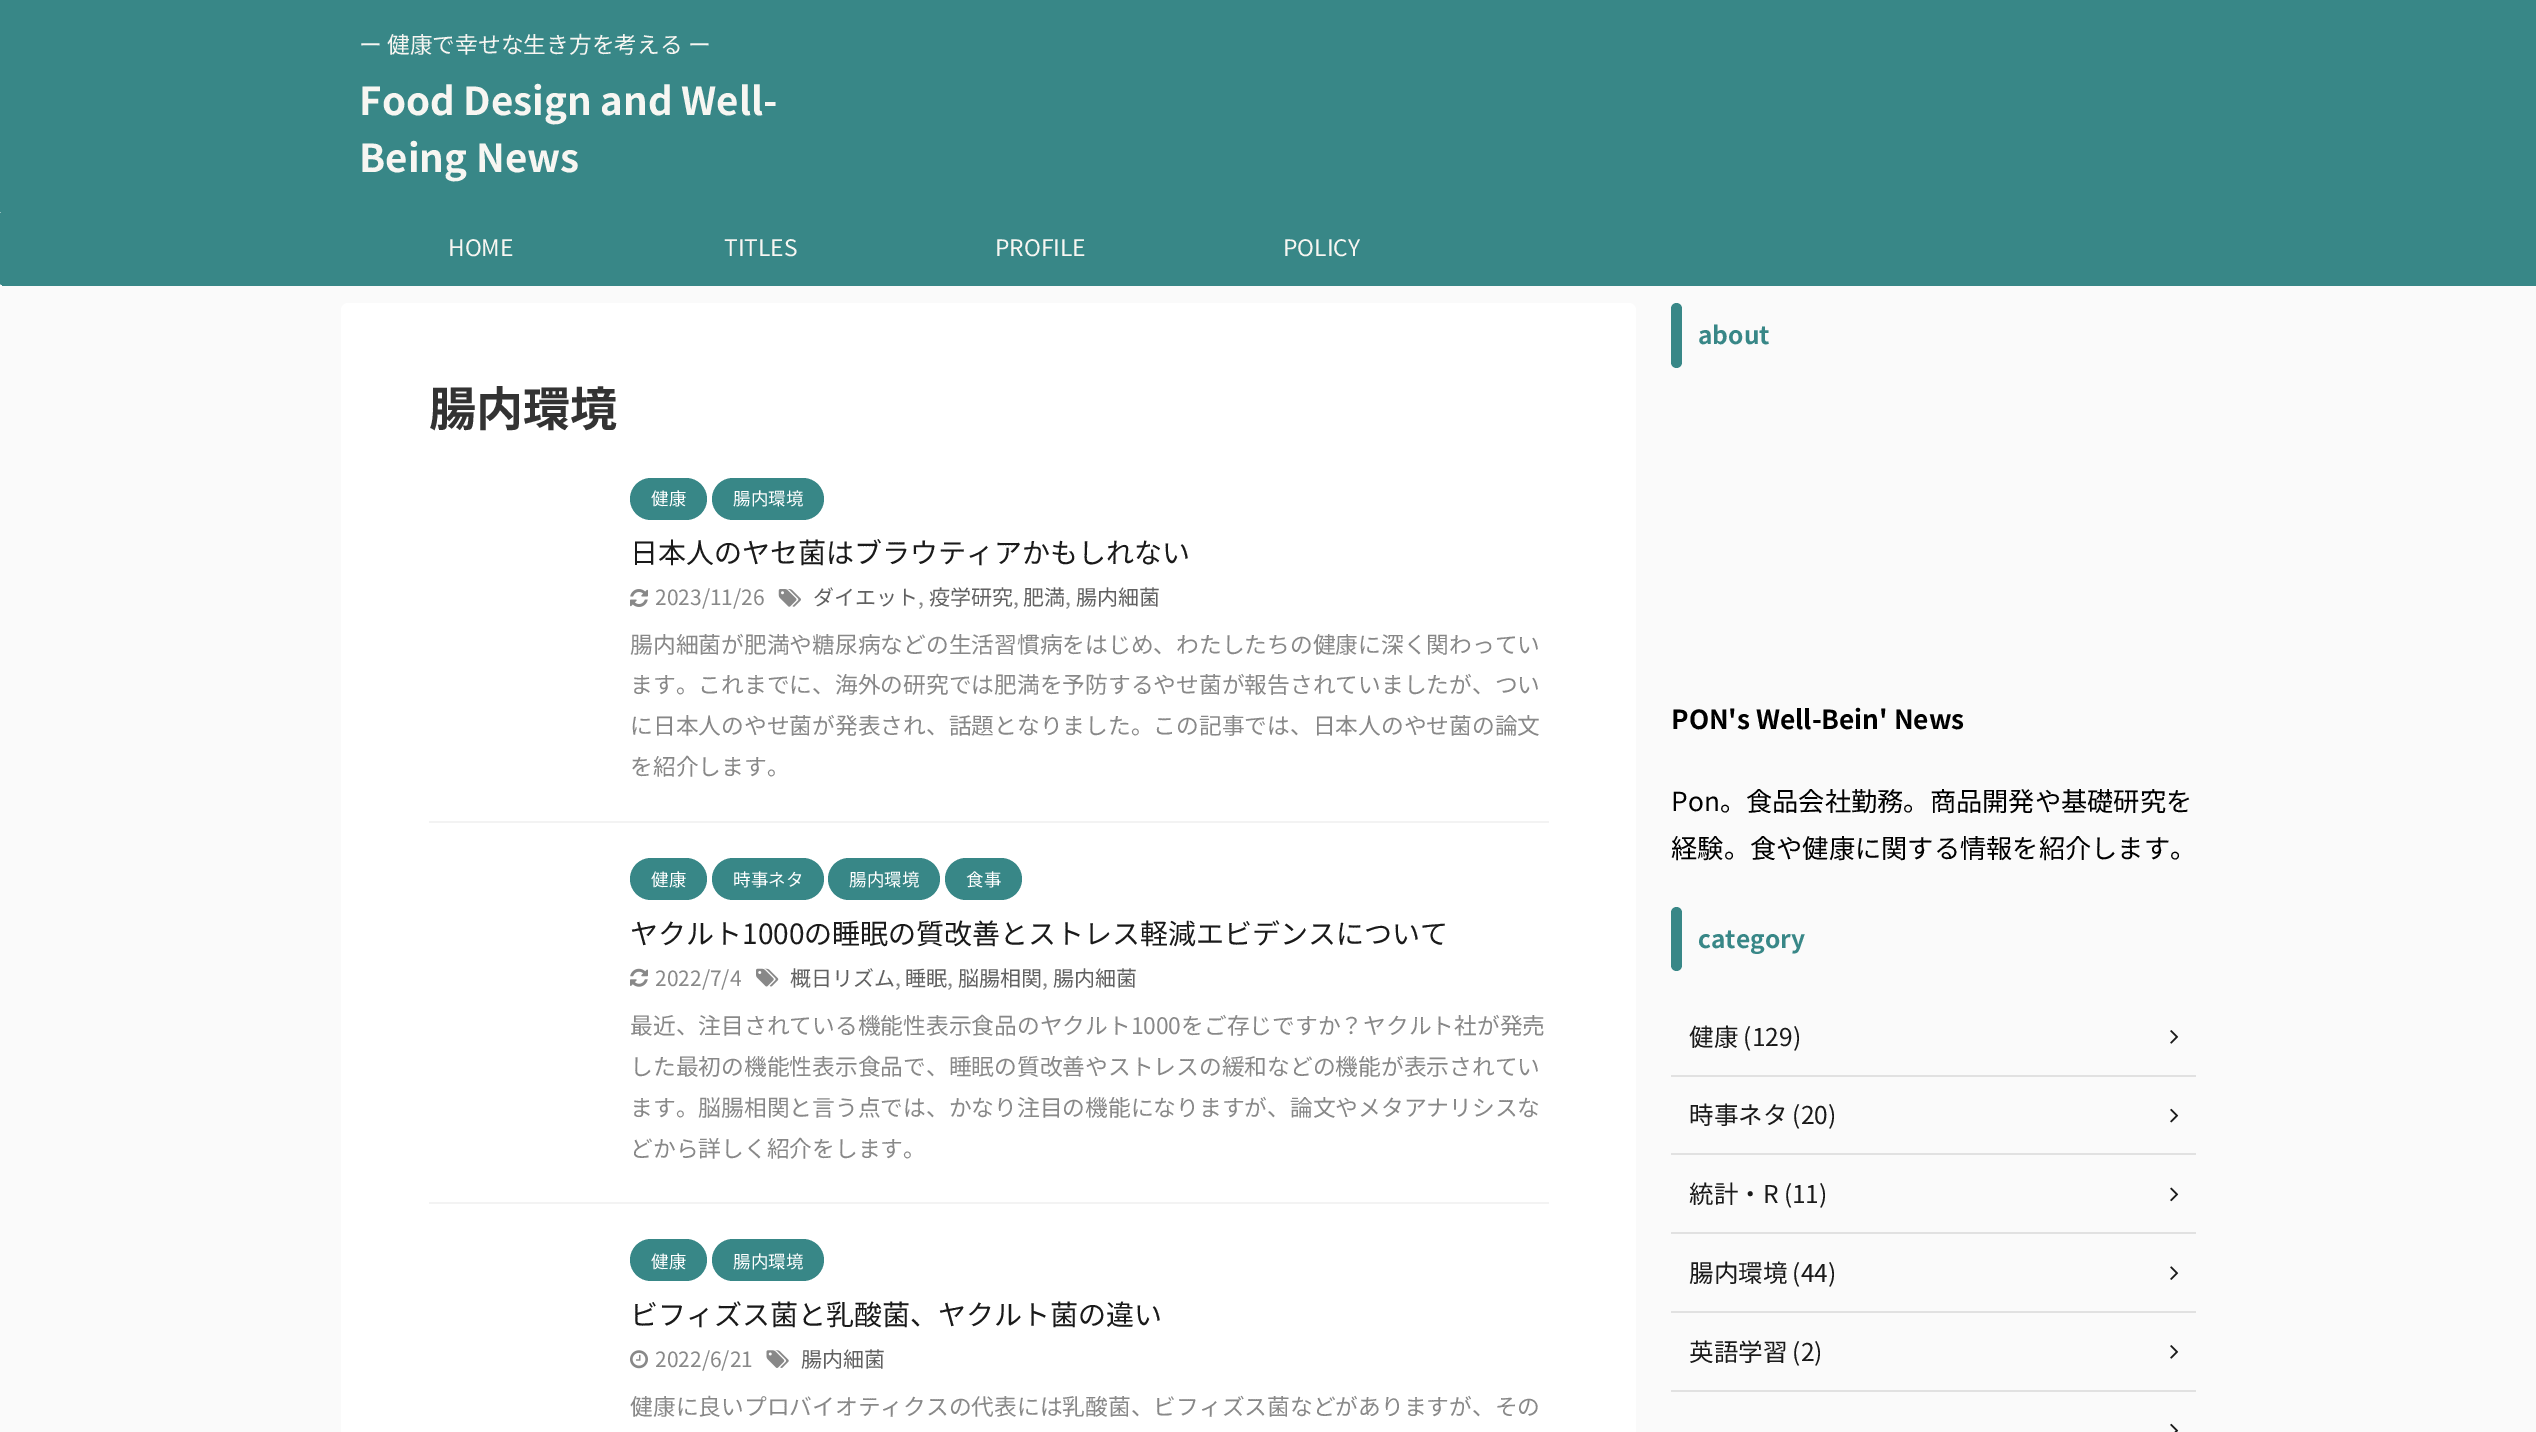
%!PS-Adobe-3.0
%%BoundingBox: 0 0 2536 1432
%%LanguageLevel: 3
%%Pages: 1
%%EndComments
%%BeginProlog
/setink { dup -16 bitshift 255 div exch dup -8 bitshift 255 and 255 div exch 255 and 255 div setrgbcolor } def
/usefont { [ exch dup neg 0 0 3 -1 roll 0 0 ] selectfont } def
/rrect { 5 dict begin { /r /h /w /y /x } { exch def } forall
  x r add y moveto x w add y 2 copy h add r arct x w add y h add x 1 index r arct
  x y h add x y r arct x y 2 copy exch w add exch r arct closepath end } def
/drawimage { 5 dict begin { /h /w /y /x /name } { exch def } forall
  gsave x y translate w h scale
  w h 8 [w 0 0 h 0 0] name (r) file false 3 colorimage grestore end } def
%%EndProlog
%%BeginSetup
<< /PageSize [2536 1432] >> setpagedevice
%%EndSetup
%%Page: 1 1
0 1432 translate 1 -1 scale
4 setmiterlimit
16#FAFAFA setink
0 0 2536 1432 rectfill
16#388787 setink
0 0 2536 212 rectfill
/NotoSansJP-Regular 22.75 usefont
16#F7F6F2 setink
359 53 moveto (ー 健康で幸せな生き方を考える ー) show
/NotoSansJP-Bold 38.5 usefont
359 115 moveto (Food Design and Well-) show
359 172 moveto (Being News) show
16#388787 setink
0 212 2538 73 2 rrect fill
2 285 2534 1 rectfill
/NotoSansJP-Regular 22.75 usefont
16#F7F6F2 setink
[
    [(HOME) 448 256]
    [(TITLES) 724 256]
    [(PROFILE) 995 256]
    [(POLICY) 1283 256]
] { aload pop moveto show } forall
16#FFFFFF setink
341 303 1295 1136 7 rrect fill
/NotoSansJP-Bold 47 usefont
16#333333 setink
429 426 moveto (腸内環境) show
16#F3F3F3 setink
429 821 1120 2 rectfill
16#388787 setink
630 478 77 42 21 rrect fill
/NotoSansJP-Regular 17.5 usefont
16#FFFFFF setink
651 505 moveto (健康) show
16#388787 setink
712 478 112 42 21 rrect fill
16#FFFFFF setink
733 505 moveto (腸内環境) show
/NotoSansJP-Regular 28 usefont
16#1A1A1A setink
630 563 moveto (日本人のヤセ菌はブラウティアかもしれない) show
(img1.raw) 630 589 18 18 drawimage
/NotoSansJP-Regular 21 usefont
16#888888 setink
655 605 moveto (2023/11/26) show
(img2.raw) 778 589 23 18 drawimage
16#616161 setink
813 605 moveto (ダイエット) show
16#888888 setink
918 605 moveto (,) show
16#616161 setink
929 605 moveto (疫学研究) show
16#888888 setink
1013 605 moveto (,) show
16#616161 setink
1023 605 moveto (肥満) show
16#888888 setink
1065 605 moveto (,) show
16#616161 setink
1076 605 moveto (腸内細菌) show
/NotoSansJP-Regular 22.75 usefont
16#888888 setink
[
    [(腸内細菌が肥満や糖尿病などの生活習慣病をはじめ、わたしたちの健康に深く関わってい) 630 653]
    [(ます。これまでに、海外の研究では肥満を予防するやせ菌が報告されていましたが、つい) 630 693]
    [(に日本人のやせ菌が発表され、話題となりました。この記事では、日本人のやせ菌の論文) 630 734]
    [(を紹介します。) 630 775]
] { aload pop moveto show } forall
16#F3F3F3 setink
429 1202 1120 2 rectfill
16#388787 setink
630 858 77 42 21 rrect fill
/NotoSansJP-Regular 17.5 usefont
16#FFFFFF setink
651 886 moveto (健康) show
16#388787 setink
712 858 112 42 21 rrect fill
16#FFFFFF setink
733 886 moveto (時事ネタ) show
16#388787 setink
828 858 112 42 21 rrect fill
16#FFFFFF setink
849 886 moveto (腸内環境) show
16#388787 setink
945 858 77 42 21 rrect fill
16#FFFFFF setink
966 886 moveto (食事) show
/NotoSansJP-Regular 28 usefont
16#1A1A1A setink
630 944 moveto (ヤクルト1000の睡眠の質改善とストレス軽減エビデンスについて) show
(img3.raw) 630 968 18 19 drawimage
/NotoSansJP-Regular 21 usefont
16#888888 setink
655 986 moveto (2022/7/4) show
(img4.raw) 756 968 23 19 drawimage
16#616161 setink
790 986 moveto (概日リズム) show
16#888888 setink
895 986 moveto (,) show
16#616161 setink
905 986 moveto (睡眠) show
16#888888 setink
947 986 moveto (,) show
16#616161 setink
958 986 moveto (脳腸相関) show
16#888888 setink
1042 986 moveto (,) show
16#616161 setink
1053 986 moveto (腸内細菌) show
/NotoSansJP-Regular 22.75 usefont
16#888888 setink
[
    [(最近、注目されている機能性表示食品のヤクルト1000をご存じですか？ヤクルト社が発売) 630 1034]
    [(した最初の機能性表示食品で、睡眠の質改善やストレスの緩和などの機能が表示されてい) 630 1075]
    [(ます。脳腸相関と言う点では、かなり注目の機能になりますが、論文やメタアナリシスな) 630 1116]
    [(どから詳しく紹介をします。) 630 1157]
] { aload pop moveto show } forall
16#388787 setink
630 1239 77 42 21 rrect fill
/NotoSansJP-Regular 17.5 usefont
16#FFFFFF setink
651 1268 moveto (健康) show
16#388787 setink
712 1239 112 42 21 rrect fill
16#FFFFFF setink
733 1268 moveto (腸内環境) show
/NotoSansJP-Regular 28 usefont
16#1A1A1A setink
630 1325 moveto (ビフィズス菌と乳酸菌、ヤクルト菌の違い) show
(img5.raw) 630 1350 18 19 drawimage
/NotoSansJP-Regular 21 usefont
16#888888 setink
655 1367 moveto (2022/6/21) show
(img6.raw) 766 1350 23 18 drawimage
16#616161 setink
801 1367 moveto (腸内細菌) show
/NotoSansJP-Regular 22.75 usefont
16#888888 setink
630 1415 moveto (健康に良いプロバイオティクスの代表には乳酸菌、ビフィズス菌などがありますが、その) show
16#388787 setink
1671 303 11 65 5.5 rrect fill
/NotoSansJP-Bold 24.5 usefont
1698 344 moveto (about) show
/NotoSansJP-Bold 26.25 usefont
16#000000 setink
1671 729 moveto (PON's Well-Bein' News) show
/NotoSansJP-Regular 26.25 usefont
1671 811 moveto (Pon。食品会社勤務。商品開発や基礎研究を) show
1671 858 moveto (経験。食や健康に関する情報を紹介します。) show
16#388787 setink
1671 907 11 64 5.5 rrect fill
/NotoSansJP-Bold 24.5 usefont
1698 948 moveto (category) show
16#E1E1E1 setink
1671 1075 525 2 rectfill
/NotoSansJP-Regular 24.5 usefont
16#1A1A1A setink
1689 1046 moveto (健康 \(129\)) show
(img7.raw) 2170 1030 9 14 drawimage
16#E1E1E1 setink
1671 1153 525 2 rectfill
16#1A1A1A setink
1689 1124 moveto (時事ネタ \(20\)) show
(img8.raw) 2170 1108 9 15 drawimage
16#E1E1E1 setink
1671 1232 525 2 rectfill
16#1A1A1A setink
1689 1203 moveto (統計・R \(11\)) show
(img9.raw) 2170 1187 9 15 drawimage
16#E1E1E1 setink
1671 1311 525 2 rectfill
16#1A1A1A setink
1689 1282 moveto (腸内環境 \(44\)) show
(img10.raw) 2170 1266 9 14 drawimage
16#E1E1E1 setink
1671 1390 525 2 rectfill
16#1A1A1A setink
1689 1361 moveto (英語学習 \(2\)) show
(img7.raw) 2170 1345 9 14 drawimage
(img11.raw) 2170 1423 9 9 drawimage
showpage
%%EOF
